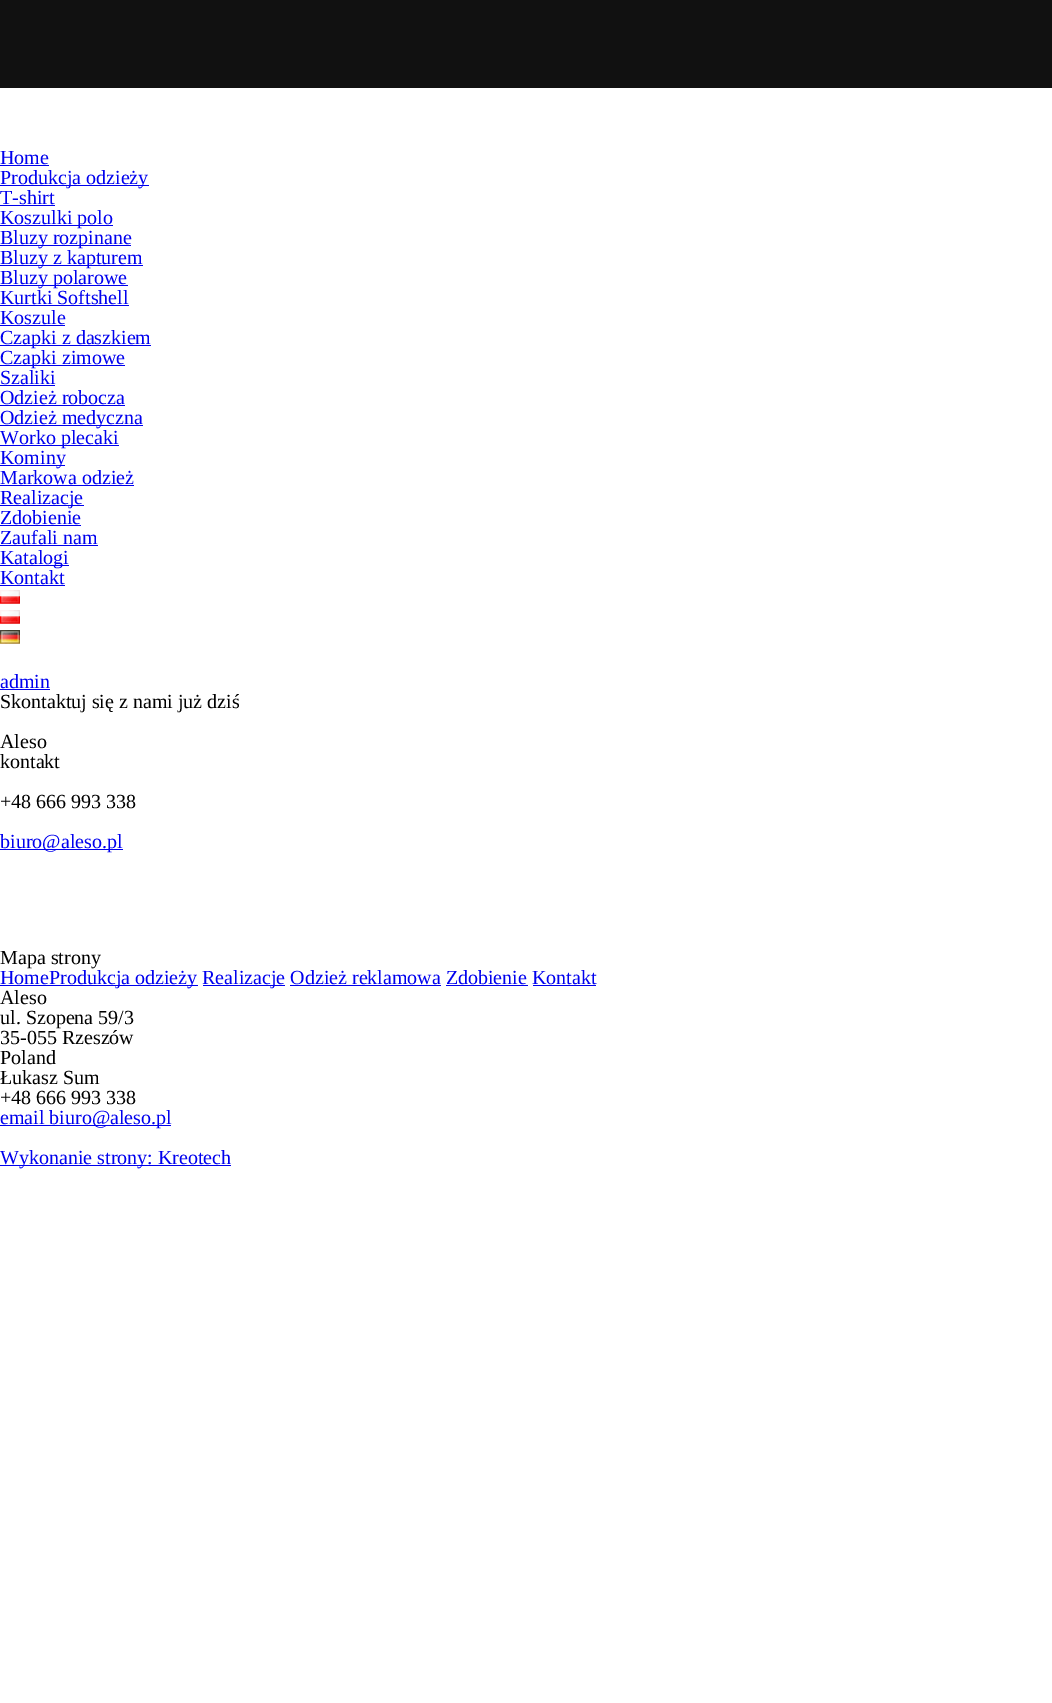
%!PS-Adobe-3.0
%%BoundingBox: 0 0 1052 1703
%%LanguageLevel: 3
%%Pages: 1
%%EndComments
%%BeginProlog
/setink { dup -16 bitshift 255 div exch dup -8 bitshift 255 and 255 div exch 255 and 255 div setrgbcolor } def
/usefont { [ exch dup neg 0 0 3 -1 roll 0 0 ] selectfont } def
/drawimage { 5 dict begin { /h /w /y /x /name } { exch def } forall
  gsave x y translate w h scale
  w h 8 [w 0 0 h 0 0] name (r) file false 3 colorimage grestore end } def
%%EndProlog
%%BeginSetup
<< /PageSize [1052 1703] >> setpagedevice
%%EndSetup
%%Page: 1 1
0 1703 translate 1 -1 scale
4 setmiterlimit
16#FFFFFF setink
0 0 1052 1703 rectfill
16#111111 setink
0 0 1052 88 rectfill
/LiberationSerif-Regular 20 usefont
16#0000EE setink
0 164 moveto (Home) show
0 165 49 1 rectfill
0 185 149 1 rectfill
0 184 moveto (Produkcja odzieży) show
0 204 moveto (T-shirt) show
0 205 55 1 rectfill
0 225 113 1 rectfill
0 224 moveto (Koszulki polo) show
0 245 131 1 rectfill
0 244 moveto (Bluzy rozpinane) show
0 265 143 1 rectfill
0 264 moveto (Bluzy z kapturem) show
0 285 128 1 rectfill
0 284 moveto (Bluzy polarowe) show
0 304 moveto (Kurtki Softshell) show
0 305 129 1 rectfill
0 324 moveto (Koszule) show
0 325 65 1 rectfill
0 345 151 1 rectfill
0 344 moveto (Czapki z daszkiem) show
0 365 125 1 rectfill
0 364 moveto (Czapki zimowe) show
0 384 moveto (Szaliki) show
0 385 55 1 rectfill
0 404 moveto (Odzież robocza) show
0 405 125 1 rectfill
0 425 143 1 rectfill
0 424 moveto (Odzież medyczna) show
0 445 119 1 rectfill
0 444 moveto (Worko plecaki) show
0 465 65 1 rectfill
0 464 moveto (Kominy) show
0 484 moveto (Markowa odzież) show
0 485 134 1 rectfill
0 505 84 1 rectfill
0 504 moveto (Realizacje) show
0 524 moveto (Zdobienie) show
0 525 81 1 rectfill
0 544 moveto (Zaufali nam) show
0 545 98 1 rectfill
0 565 69 1 rectfill
0 564 moveto (Katalogi) show
0 584 moveto (Kontakt) show
0 585 65 1 rectfill
(img1.raw) 0 590 20 14 drawimage
(img1.raw) 0 610 20 14 drawimage
(img2.raw) 0 630 20 14 drawimage
0 688 moveto (admin) show
0 689 50 1 rectfill
16#000000 setink
[
    [(Skontaktuj się z nami już dziś) 0 708]
    [(Aleso) 0 748]
    [(kontakt) 0 768]
    [(+48 666 993 338) 0 808]
] { aload pop moveto show } forall
16#0000EE setink
0 849 123 1 rectfill
0 848 moveto (biuro@aleso.pl) show
16#000000 setink
0 964 moveto (Mapa strony) show
16#0000EE setink
0 985 198 1 rectfill
0 984 moveto (HomeProdukcja odzieży) show
203 985 82 1 rectfill
202 984 moveto (Realizacje Odzież reklamowa Zdobienie Kontakt) show
[
    [290 985 151 1 16#0000EE]
    [446 985 82 1 16#0000EE]
    [533 985 63 1 16#0000EE]
] { aload pop setink rectfill } forall
16#000000 setink
[
    [(Aleso) 0 1004]
    [(ul. Szopena 59/3) 0 1024]
    [(35-055 Rzeszów) 0 1044]
    [(Poland) 0 1064]
    [(Łukasz Sum) 0 1084]
    [(+48 666 993 338) 0 1104]
] { aload pop moveto show } forall
16#0000EE setink
0 1125 171 1 rectfill
0 1124 moveto (email biuro@aleso.pl) show
0 1165 231 1 rectfill
0 1164 moveto (Wykonanie strony: Kreotech) show
showpage
%%EOF
